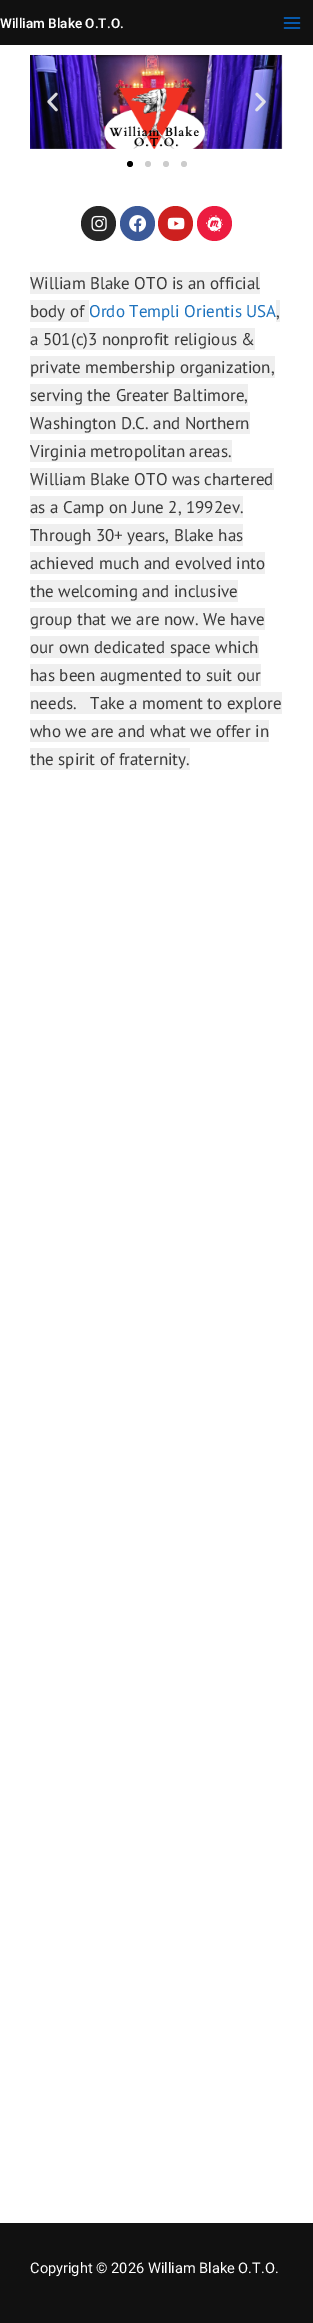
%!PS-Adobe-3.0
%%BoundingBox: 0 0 313 2323
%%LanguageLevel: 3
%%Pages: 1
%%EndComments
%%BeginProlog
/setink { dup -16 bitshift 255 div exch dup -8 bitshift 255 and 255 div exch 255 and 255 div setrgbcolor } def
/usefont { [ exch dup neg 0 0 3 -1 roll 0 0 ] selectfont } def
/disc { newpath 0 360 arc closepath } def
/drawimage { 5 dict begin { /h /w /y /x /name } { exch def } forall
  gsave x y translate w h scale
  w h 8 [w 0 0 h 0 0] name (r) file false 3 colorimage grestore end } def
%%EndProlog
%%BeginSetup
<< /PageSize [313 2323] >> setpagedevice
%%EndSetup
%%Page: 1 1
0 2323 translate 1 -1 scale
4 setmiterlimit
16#FFFFFF setink
0 0 313 2323 rectfill
16#111111 setink
0 0 313 45 rectfill
/Roboto-SemiBold 13.5 usefont
16#FFFFFF setink
0 28 moveto (William Blake O.T.O.) show
(img1.raw) 283 17 18 12 drawimage
(img2.raw) 30 55 253 94 drawimage
(img3.raw) 47 92 11 20 drawimage
(img4.raw) 255 92 11 20 drawimage
16#000000 setink
130 164 3 disc fill
16#CCCCCC setink
148 164 3 disc fill
166 164 3 disc fill
184 164 3 disc fill
16#262626 setink
98.5 223.5 17.5 disc fill
(img5.raw) 91 215 16 17 drawimage
16#3B5998 setink
137.5 223.5 17.5 disc fill
(img6.raw) 129 215 17 17 drawimage
16#CD201F setink
175.5 223.5 17.5 disc fill
(img7.raw) 167 217 18 13 drawimage
16#EC1C40 setink
214.5 223.5 17.5 disc fill
(img8.raw) 206 215 17 17 drawimage
16#EFEFEF setink
30 272 230 22 rectfill
/PTSans-Regular 17 usefont
16#3A3A3A setink
30 289 moveto (William Blake OTO is an official) show
16#EFEFEF setink
30 300 59 22 rectfill
16#3A3A3A setink
30 317 moveto (body of) show
16#1E73BE setink
89 317 moveto (Ordo Templi Orientis USA) show
16#EFEFEF setink
276 300 4 22 rectfill
16#3A3A3A setink
276 317 moveto (,) show
16#EFEFEF setink
30 328 225 22 rectfill
16#3A3A3A setink
30 345 moveto (a 501\(c\)3 nonprofit religious &) show
16#EFEFEF setink
30 356 245 22 rectfill
16#3A3A3A setink
30 373 moveto (private membership organization,) show
16#EFEFEF setink
30 384 218 22 rectfill
16#3A3A3A setink
30 401 moveto (serving the Greater Baltimore,) show
16#EFEFEF setink
30 412 220 22 rectfill
16#3A3A3A setink
30 429 moveto (Washington D.C. and Northern) show
16#EFEFEF setink
30 440 202 22 rectfill
16#3A3A3A setink
30 457 moveto (Virginia metropolitan areas.) show
16#EFEFEF setink
30 468 244 22 rectfill
16#3A3A3A setink
30 485 moveto (William Blake OTO was chartered) show
16#EFEFEF setink
30 496 213 22 rectfill
16#3A3A3A setink
30 513 moveto (as a Camp on June 2, 1992ev.) show
16#EFEFEF setink
30 524 213 22 rectfill
16#3A3A3A setink
30 541 moveto (Through 30+ years, Blake has) show
16#EFEFEF setink
30 552 235 22 rectfill
16#3A3A3A setink
30 569 moveto (achieved much and evolved into) show
16#EFEFEF setink
30 580 208 22 rectfill
16#3A3A3A setink
30 597 moveto (the welcoming and inclusive) show
16#EFEFEF setink
30 608 235 22 rectfill
16#3A3A3A setink
30 625 moveto (group that we are now. We have) show
16#EFEFEF setink
30 636 229 22 rectfill
16#3A3A3A setink
30 653 moveto (our own dedicated space which) show
16#EFEFEF setink
30 664 231 22 rectfill
16#3A3A3A setink
30 681 moveto (has been augmented to suit our) show
16#EFEFEF setink
30 692 252 22 rectfill
16#3A3A3A setink
30 709 moveto (needs.   Take a moment to explore) show
16#EFEFEF setink
30 720 239 22 rectfill
16#3A3A3A setink
30 737 moveto (who we are and what we offer in) show
16#EFEFEF setink
30 748 160 22 rectfill
16#3A3A3A setink
30 765 moveto (the spirit of fraternity.) show
16#111111 setink
0 2223 313 100 rectfill
/Roboto-Regular 14.6 usefont
16#FFFFFF setink
30 2273 moveto (Copyright © 2026 William Blake O.T.O.) show
showpage
%%EOF
